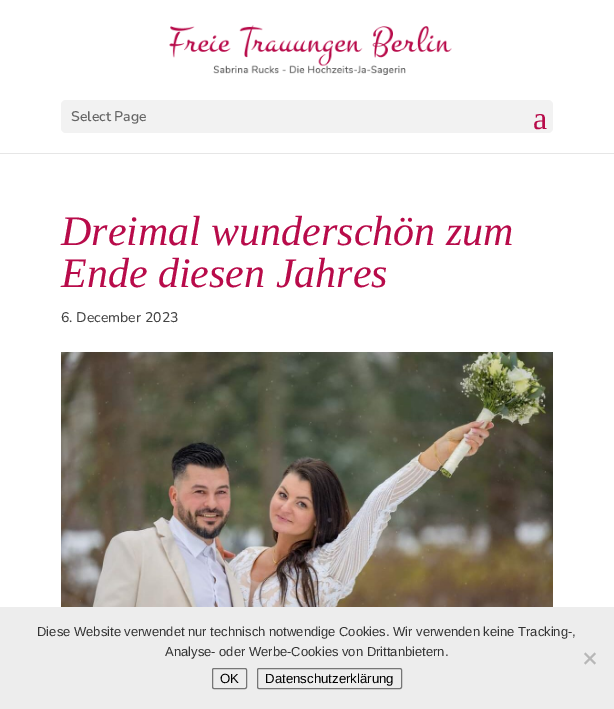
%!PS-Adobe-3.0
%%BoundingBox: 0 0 614 709
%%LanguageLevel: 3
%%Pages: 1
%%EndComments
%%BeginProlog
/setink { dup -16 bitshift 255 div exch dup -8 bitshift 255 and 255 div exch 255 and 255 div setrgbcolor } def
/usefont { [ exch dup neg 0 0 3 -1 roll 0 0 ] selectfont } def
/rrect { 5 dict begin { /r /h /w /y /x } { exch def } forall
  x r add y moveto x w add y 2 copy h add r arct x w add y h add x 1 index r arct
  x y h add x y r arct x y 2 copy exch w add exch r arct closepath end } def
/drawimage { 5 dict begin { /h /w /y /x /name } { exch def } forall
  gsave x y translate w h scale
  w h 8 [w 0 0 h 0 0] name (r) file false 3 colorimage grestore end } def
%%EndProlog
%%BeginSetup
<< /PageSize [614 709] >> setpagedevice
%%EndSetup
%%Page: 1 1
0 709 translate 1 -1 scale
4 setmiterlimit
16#FFFFFF setink
0 0 614 709 rectfill
16#E6E6E6 setink
0 153 614 1 rectfill
(img1.raw) 169 25 283 50 drawimage
16#F2F2F2 setink
61 100 492 33 5 rrect fill
/Nunito-SemiBold 14 usefont
16#666666 setink
71 121 moveto (Select Page) show
/LiberationSerif-Regular 32 usefont
16#B80B4A setink
533 129 moveto (a) show
/LiberationSerif-Italic 42 usefont
61 245 moveto (Dreimal wunderschön zum) show
61 287 moveto (Ende diesen Jahres) show
/Nunito-Medium 14 usefont
16#444444 setink
61 322 moveto (6. December 2023) show
(img2.raw) 61 352 492 255 drawimage
16#EDEDED setink
0 607 614 102 rectfill
/LiberationSans-Regular 13 usefont
16#333333 setink
37 636 moveto (Diese Website verwendet nur technisch notwendige Cookies. Wir verwenden keine Tracking-,) show
165 656 moveto (Analyse- oder Werbe-Cookies von Drittanbietern.) show
16#B7B7B7 setink
594.5 652.5 moveto 596 654 lineto 585.5 664.5 lineto 584 663 lineto closepath fill
584 654 moveto 585.5 652.5 lineto 596 663 lineto 594.5 664.5 lineto closepath fill
16#767676 setink
212.5 668.5 34 20 1.5 rrect stroke
/LiberationSans-Regular 13.25 usefont
16#000000 setink
220 683 moveto (OK) show
16#767676 setink
257.5 668.5 144 20 1.5 rrect stroke
16#000000 setink
265 683 moveto (Datenschutzerklärung) show
showpage
%%EOF
